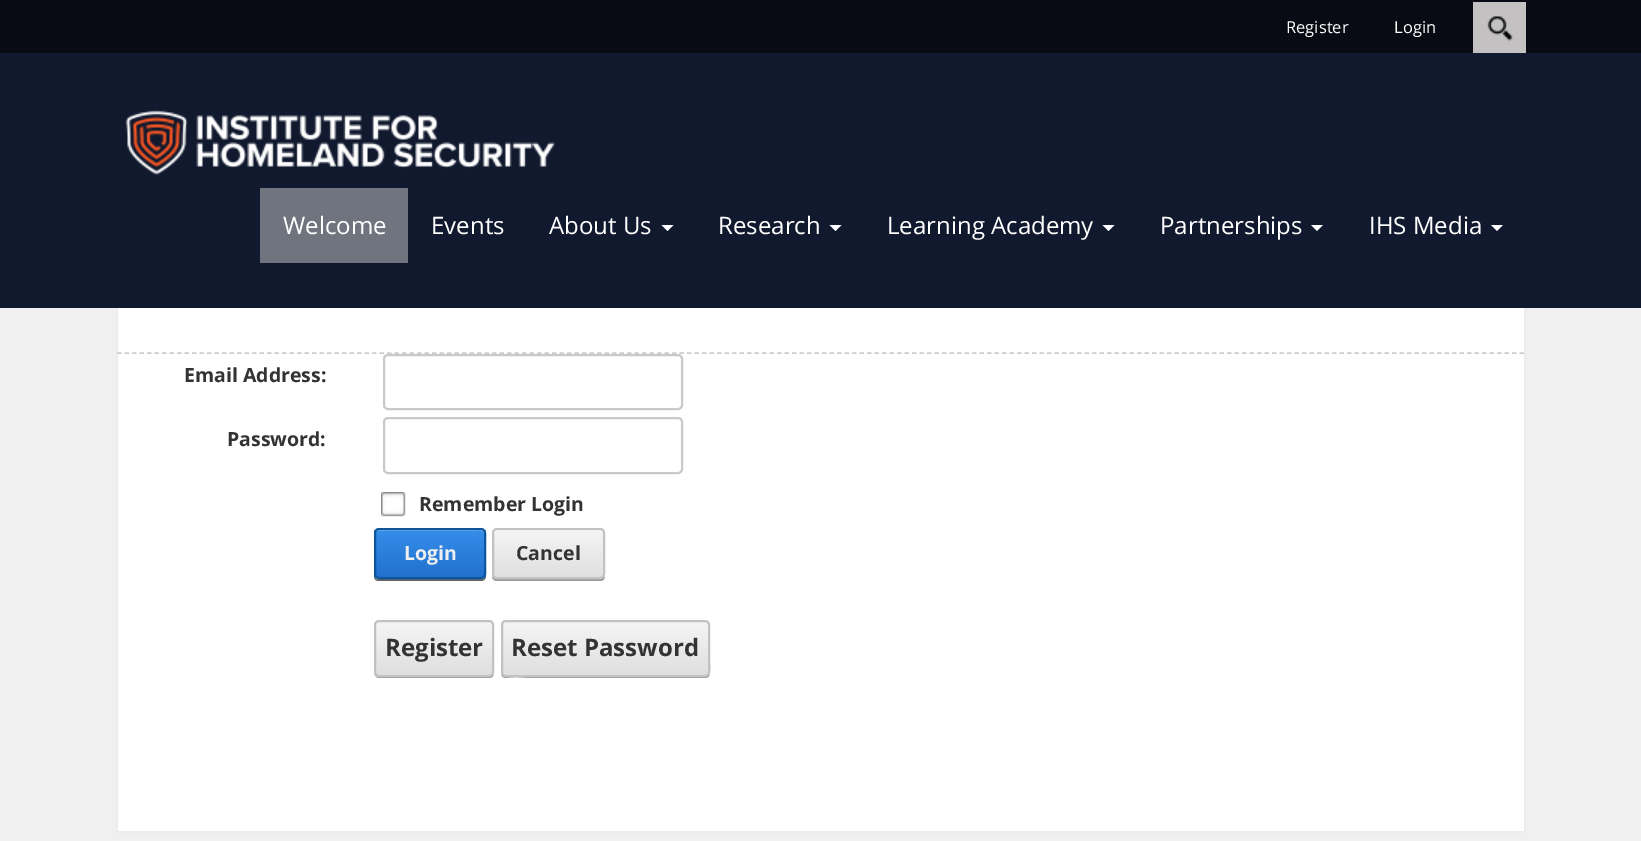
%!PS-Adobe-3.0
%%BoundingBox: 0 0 1641 841
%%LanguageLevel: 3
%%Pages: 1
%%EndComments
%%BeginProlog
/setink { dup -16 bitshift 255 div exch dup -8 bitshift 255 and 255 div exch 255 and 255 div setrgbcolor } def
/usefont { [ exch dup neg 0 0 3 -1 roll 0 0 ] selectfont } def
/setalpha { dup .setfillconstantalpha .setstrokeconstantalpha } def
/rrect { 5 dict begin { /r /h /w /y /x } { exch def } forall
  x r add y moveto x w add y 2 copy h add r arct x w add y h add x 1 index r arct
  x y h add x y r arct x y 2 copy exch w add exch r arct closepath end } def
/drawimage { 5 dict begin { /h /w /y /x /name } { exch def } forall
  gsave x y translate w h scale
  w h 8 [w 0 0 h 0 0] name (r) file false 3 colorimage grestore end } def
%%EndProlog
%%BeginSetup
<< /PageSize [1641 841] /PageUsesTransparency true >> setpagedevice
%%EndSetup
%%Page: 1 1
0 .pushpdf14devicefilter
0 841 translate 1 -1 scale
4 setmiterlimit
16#F0F0F0 setink
0 0 1641 841 rectfill
16#080B14 setink
0 0 1641 53 rectfill
/OpenSans-Regular 16.5 usefont
16#FFFFFF setink
1286 33 moveto (Register) show
1394 33 moveto (Login) show
16#C3C1C1 setink
1473 2 53 51 rectfill
(img1.raw) 1487 16 26 25 drawimage
16#11192E setink
0 53 1641 255 rectfill
(img2.raw) 125 110 431 65 drawimage
16#6F747E setink
260 188 148 75 rectfill
/OpenSans-Regular 24 usefont
16#FFFFFF setink
[
    [(Welcome) 283 234]
    [(Events) 431 234]
    [(About Us) 549 234]
] { aload pop moveto show } forall
661.5 225 moveto 673.5 225 lineto 667.5 231 lineto closepath fill
718 234 moveto (Research) show
829.5 225 moveto 841.5 225 lineto 835.5 231 lineto closepath fill
887 234 moveto (Learning Academy) show
1102.5 225 moveto 1114.5 225 lineto 1108.5 231 lineto closepath fill
1160 234 moveto (Partnerships) show
1311 225 moveto 1323 225 lineto 1317 231 lineto closepath fill
1369 234 moveto (IHS Media) show
1491 225 moveto 1503 225 lineto 1497 231 lineto closepath fill
[
    [118 308 1406 523 16#FFFFFF]
    [1524 308 2 525 16#ECECEC]
    [116 831 1410 2 16#ECECEC]
    [116 308 2 525 16#ECECEC]
] { aload pop setink rectfill } forall
16#CCCCCC setink
1.5 setlinewidth
[4.5 3] 0 setdash
117 353 moveto 1524 353 lineto stroke
/OpenSans-Bold 19.5 usefont
16#333333 setink
184 382 moveto (Email Address:) show
16#C9C9C9 setink
2 setlinewidth
[] 0 setdash
384 355 298 54 4 rrect stroke
16#333333 setink
227 446 moveto (Password:) show
16#C9C9C9 setink
384 418 298 55 4 rrect stroke
(img3.raw) 381 492 25 25 drawimage
16#333333 setink
419 511 moveto (Remember Login) show
16#666666 setink
374 577 moveto 374 579 376 581 379 581 curveto 481 581 lineto 484 581 486 579 486 576 curveto 486 574 lineto 486 577 484 579 482 579 curveto 378 579 lineto 376 579 375 578 374 577 curveto closepath fill
gsave
374 528 112 51 5 rrect clip newpath
gsave 374 530 moveto 486 530 lineto 486 578 lineto 374 578 lineto closepath clip newpath
<< /ShadingType 2 /ColorSpace /DeviceRGB /Coords [430 530 430 578] /Extend [true true] /Function << /FunctionType 2 /Domain [0 1] /C0 [0.208 0.557 0.918] /C1 [0.129 0.439 0.804] /N 1 >> >> shfill grestore
grestore
0.4 setalpha
16#FFFFFF setink
378 531 moveto 465 531 lineto 488 531 484 527 484 548 curveto 484 577 lineto 485 577 485 576 485 575 curveto 485 533 lineto 485 531 484 530 482 530 curveto 378 530 lineto 376 530 375 531 375 533 curveto 375 534 lineto 375 532 376 531 378 531 curveto closepath fill
1 setalpha
16#0D569E setink
375 529 110 49 4 rrect stroke
16#EFEFEF setink
404 560 moveto (Login) show
16#999999 setink
492 574 moveto 492 576 lineto 492 579 494 581 497 581 curveto 600 581 lineto 603 581 605 579 605 576 curveto 605 535 lineto 604 533 lineto 604 574 lineto 604 577 602 579 600 579 curveto 496 579 lineto 494 579 492 577 492 574 curveto closepath fill
gsave
492 528 113 51 5 rrect clip newpath
gsave 492 530 moveto 605 530 lineto 605 578 lineto 492 578 lineto closepath clip newpath
<< /ShadingType 2 /ColorSpace /DeviceRGB /Coords [548 530 548 578] /Extend [true true] /Function << /FunctionType 2 /Domain [0 1] /C0 [0.961 0.961 0.961] /C1 [0.875 0.875 0.875] /N 1 >> >> shfill grestore
grestore
16#FFFFFF setink
496 531 moveto 600 531 lineto 602 531 603 532 603 534 curveto 603 525 585 530 583 530 curveto 514 530 lineto 512 530 494 525 494 534 curveto 494 532 495 531 496 531 curveto closepath fill
16#C2C2C2 setink
493 529 111 49 4 rrect stroke
16#333333 setink
516 560 moveto (Cancel) show
16#999999 setink
374 674 moveto 375 676 377 678 379 678 curveto 489 678 lineto 492 678 494 676 494 673 curveto 494 626 lineto 493 624 lineto 494 672 lineto 494 674 491 676 489 676 curveto 378 676 lineto 376 676 375 676 374 674 curveto closepath fill
gsave
374 620 120 57 5 rrect clip newpath
gsave 374 621 moveto 494 621 lineto 494 675 lineto 374 675 lineto closepath clip newpath
<< /ShadingType 2 /ColorSpace /DeviceRGB /Coords [434 621 434 675] /Extend [true true] /Function << /FunctionType 2 /Domain [0 1] /C0 [0.961 0.961 0.961] /C1 [0.875 0.875 0.875] /N 1 >> >> shfill grestore
grestore
16#FFFFFF setink
378 622 moveto 489 622 lineto 491 622 492 624 492 626 curveto 492 624 lineto 492 622 491 621 489 621 curveto 378 621 lineto 376 621 375 622 375 624 curveto 375 626 lineto 375 624 376 622 378 622 curveto closepath fill
16#C2C2C2 setink
375 621 118 55 4 rrect stroke
/OpenSans-Bold 24 usefont
16#333333 setink
385 656 moveto (Register) show
16#999999 setink
501 672 moveto 501 673 lineto 501 676 503 678 506 678 curveto 705 678 lineto 708 678 710 676 710 673 curveto 710 626 lineto 709 624 lineto 710 664 lineto 710 667 711 676 705 676 curveto 539 676 lineto 533 676 501 682 501 672 curveto closepath fill
gsave
501 620 209 57 5 rrect clip newpath
gsave 501 621 moveto 710 621 lineto 710 675 lineto 501 675 lineto closepath clip newpath
<< /ShadingType 2 /ColorSpace /DeviceRGB /Coords [605 621 605 675] /Extend [true true] /Function << /FunctionType 2 /Domain [0 1] /C0 [0.961 0.961 0.961] /C1 [0.875 0.875 0.875] /N 1 >> >> shfill grestore
grestore
16#FFFFFF setink
506 622 moveto 706 622 lineto 707 623 lineto 708 626 lineto 708 624 lineto 708 622 707 621 705 621 curveto 506 621 lineto 505 621 503 622 503 623 curveto closepath fill
16#C2C2C2 setink
502 621 207 55 4 rrect stroke
16#333333 setink
511 656 moveto (Reset Password) show
.poppdf14devicefilter showpage
%%EOF
